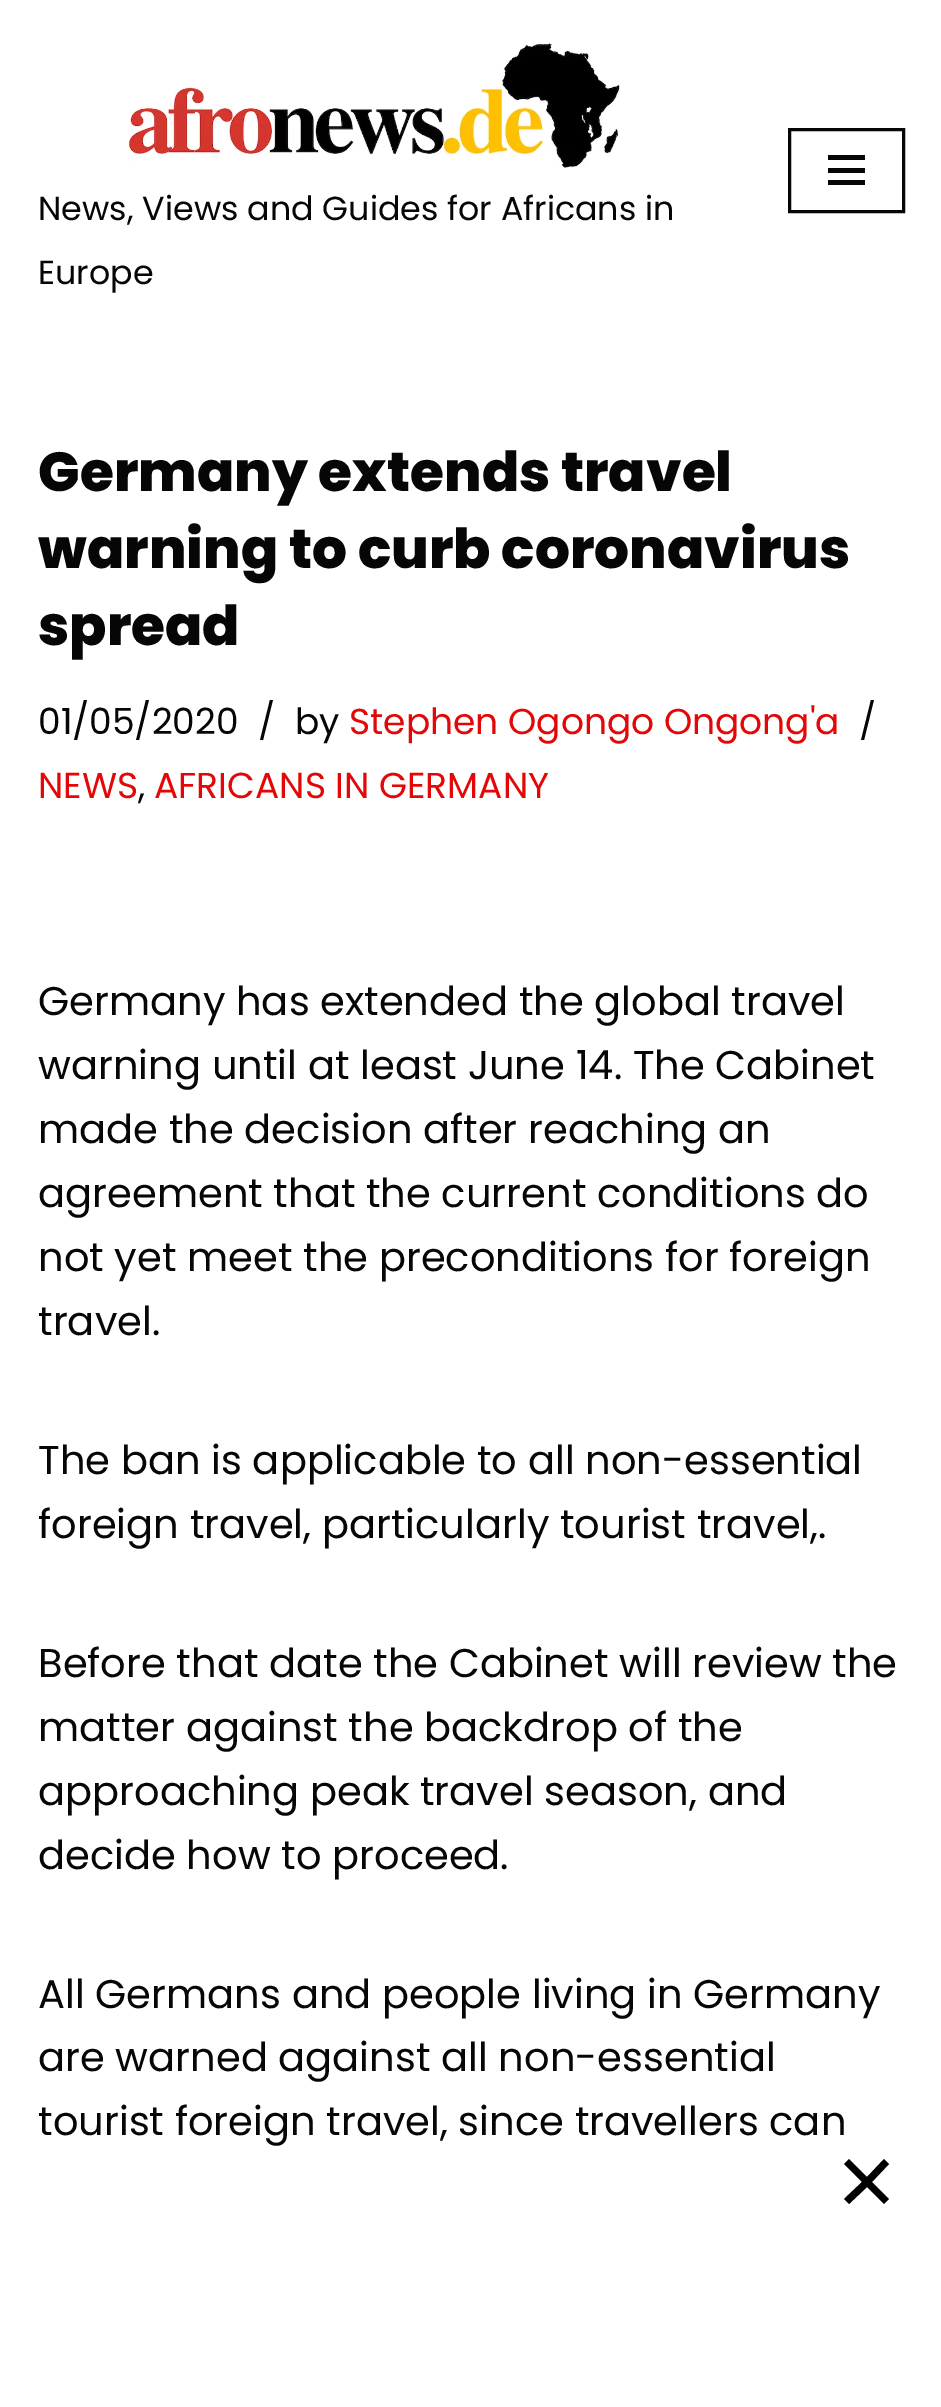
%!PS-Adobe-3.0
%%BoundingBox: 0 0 941 2407
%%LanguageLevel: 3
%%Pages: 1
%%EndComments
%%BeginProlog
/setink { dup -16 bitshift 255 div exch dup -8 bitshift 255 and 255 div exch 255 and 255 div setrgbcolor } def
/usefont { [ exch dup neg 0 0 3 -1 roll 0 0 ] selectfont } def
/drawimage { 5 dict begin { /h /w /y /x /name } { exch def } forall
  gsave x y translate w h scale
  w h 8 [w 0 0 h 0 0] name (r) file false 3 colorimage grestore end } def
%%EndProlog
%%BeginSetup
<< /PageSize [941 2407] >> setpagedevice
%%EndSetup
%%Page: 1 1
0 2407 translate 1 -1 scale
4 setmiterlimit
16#FFFFFF setink
0 0 941 2407 rectfill
16#060606 setink
3 setlinewidth
789.5 129.5 114 82 rectstroke
[
    [828 155 37 5 16#060606]
    [828 168 37 5 16#060606]
    [828 180 37 5 16#060606]
] { aload pop setink rectfill } forall
(img1.raw) 128 42 492 126 drawimage
/Poppins-Regular 33.3 usefont
38 220 moveto (News, Views and Guides for Africans in) show
38 284 moveto (Europe) show
/Poppins-ExtraBold 55 usefont
[
    [(Germany extends travel) 38 491]
    [(warning to curb coronavirus) 38 568]
    [(spread) 38 645]
] { aload pop moveto show } forall
/Poppins-Regular 36 usefont
[
    [(01/05/2020) 38 734]
    [(/) 258 734]
    [(by) 295 734]
] { aload pop moveto show } forall
16#E40707 setink
349 734 moveto (Stephen Ogongo Ongong'a) show
16#060606 setink
859 734 moveto (/) show
16#E40707 setink
38 798 moveto (NEWS) show
16#060606 setink
138 798 moveto (,) show
16#E40707 setink
154 798 moveto (AFRICANS IN GERMANY) show
/Poppins-Regular 40 usefont
16#060606 setink
[
    [(Germany has extended the global travel) 38 1015]
    [(warning until at least June 14. The Cabinet) 38 1079]
    [(made the decision after reaching an) 38 1143]
    [(agreement that the current conditions do) 38 1207]
    [(not yet meet the preconditions for foreign) 38 1271]
    [(travel.) 38 1335]
    [(The ban is applicable to all non-essential) 38 1474]
    [(foreign travel, particularly tourist travel,.) 38 1538]
    [(Before that date the Cabinet will review the) 38 1677]
    [(matter against the backdrop of the) 38 1741]
    [(approaching peak travel season, and) 38 1805]
    [(decide how to proceed.) 38 1869]
    [(All Germans and people living in Germany) 38 2008]
    [(are warned against all non-essential) 38 2071]
    [(tourist foreign travel, since travellers can) 38 2135]
] { aload pop moveto show } forall
16#000000 setink
884 2159 moveto 889 2164 lineto 872 2182 lineto 889 2199 lineto 884 2204 lineto 867 2187 lineto 849 2204 lineto 844 2199 lineto 862 2182 lineto 844 2164 lineto 849 2159 lineto 867 2177 lineto closepath fill
showpage
%%EOF
